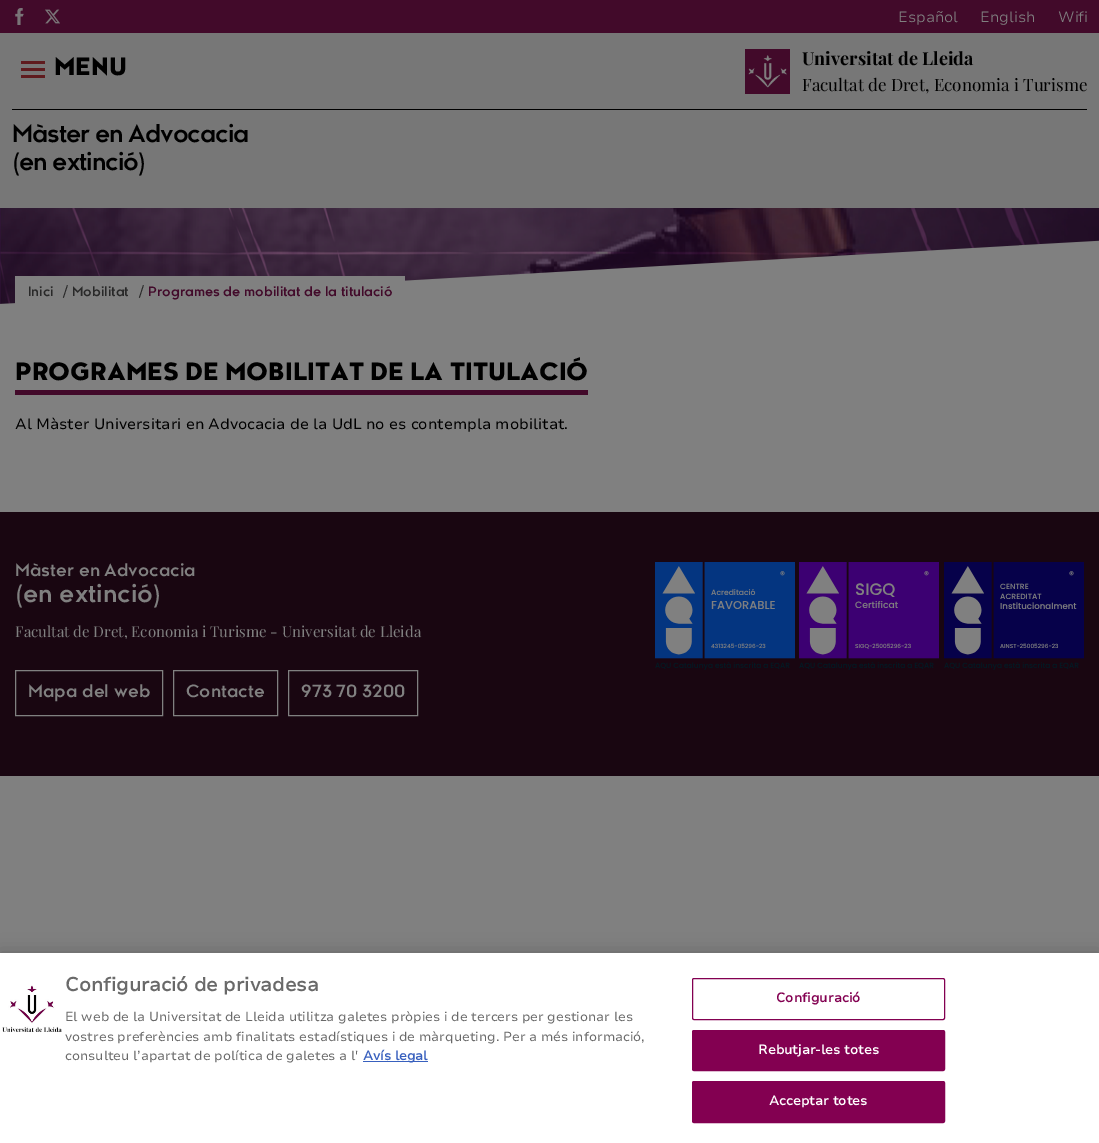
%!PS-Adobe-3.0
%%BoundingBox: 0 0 1099 1143
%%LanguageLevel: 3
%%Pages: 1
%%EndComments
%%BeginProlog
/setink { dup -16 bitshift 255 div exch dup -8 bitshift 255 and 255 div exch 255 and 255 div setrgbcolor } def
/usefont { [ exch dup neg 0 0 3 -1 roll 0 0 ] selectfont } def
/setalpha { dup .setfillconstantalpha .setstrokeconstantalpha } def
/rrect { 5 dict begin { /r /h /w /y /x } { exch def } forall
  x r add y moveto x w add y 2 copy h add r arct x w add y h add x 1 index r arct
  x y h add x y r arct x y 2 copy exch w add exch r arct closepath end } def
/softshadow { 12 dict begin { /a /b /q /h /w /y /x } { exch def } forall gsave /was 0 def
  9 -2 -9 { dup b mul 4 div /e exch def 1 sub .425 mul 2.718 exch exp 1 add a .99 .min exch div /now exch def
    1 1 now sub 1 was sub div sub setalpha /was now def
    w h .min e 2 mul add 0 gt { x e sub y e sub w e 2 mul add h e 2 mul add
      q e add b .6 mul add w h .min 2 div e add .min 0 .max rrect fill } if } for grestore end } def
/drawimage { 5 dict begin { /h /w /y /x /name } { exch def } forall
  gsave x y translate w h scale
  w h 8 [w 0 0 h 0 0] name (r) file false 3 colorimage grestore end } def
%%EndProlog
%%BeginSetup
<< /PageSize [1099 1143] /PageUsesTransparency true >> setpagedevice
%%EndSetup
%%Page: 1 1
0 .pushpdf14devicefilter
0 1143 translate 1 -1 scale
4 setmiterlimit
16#808080 setink
0 0 1099 1143 rectfill
16#420A2A setink
0 0 1099 33 rectfill
(img1.raw) 15 8 9 17 drawimage
(img2.raw) 45 9 15 15 drawimage
/NunitoSans-Light 15 usefont
16#808080 setink
[
    [(Español) 898 22]
    [(English) 980 22]
    [(Wifi) 1058 22]
] { aload pop moveto show } forall
16#777777 setink
0 33 1099 175 rectfill
16#420A2A setink
745 49 45 45 rectfill
(img3.raw) 748 55 39 33 drawimage
/PlayfairDisplay-Bold 18 usefont
16#000000 setink
802 65 moveto (Universitat de Lleida) show
/PlayfairDisplay-Regular 17 usefont
802 91 moveto (Facultat de Dret, Economia i Turisme) show
12 109 1075 1 rectfill
/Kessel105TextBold-Bold 24 usefont
12 142 moveto -1 0 (Màster en Advocacia) ashow
12 170 moveto -1 0 (\(en extinció\)) ashow
[
    [21 61 24 3 16#5F1B1E]
    [21 68 24 3 16#5F1B1E]
    [21 75 24 3 16#5F1B1E]
] { aload pop setink rectfill } forall
/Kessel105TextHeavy-Black 24 usefont
16#000000 setink
54 75 moveto (MENU) show
16#777777 setink
0 208 moveto 0 304 lineto 1099 241 lineto 1099 208 lineto closepath fill
(img4.raw) 0 208 1099 96 drawimage
16#808080 setink
15 276 390 28 rectfill
/Kessel105TextBold-Bold 13 usefont
16#292929 setink
28 296 moveto (Inici) show
/NunitoSans-Regular 16 usefont
63 297 moveto (/) show
/Kessel105TextBold-Bold 13 usefont
72 296 moveto (Mobilitat) show
/NunitoSans-Regular 16 usefont
139 297 moveto (/) show
/Kessel105TextBold-Bold 13 usefont
16#420A2A setink
148 296 moveto (Programes de mobilitat de la titulació) show
15 390 573 5 rectfill
/Kessel105TextHeavy-Black 24 usefont
16#000000 setink
15 380 moveto (PROGRAMES DE MOBILITAT DE LA TITULACIÓ) show
/NunitoSans-Regular 15 usefont
15 429 moveto (Al Màster Universitari en Advocacia de la UdL no es contempla mobilitat.) show
16#190611 setink
0 512 1099 264 rectfill
/Kessel105TextBold-Bold 17 usefont
16#808080 setink
15 576 moveto (Màster en Advocacia) show
/Kessel105TextBold-Bold 24 usefont
15 602 moveto (\(en extinció\)) show
/PlayfairDisplay-Regular 15 usefont
15 637 moveto (Facultat de Dret, Economia i Turisme - Universitat de Lleida) show
15.5 670.5 147 45 rectstroke
/Kessel105TextBold-Bold 17 usefont
28 697 moveto (Mapa del web) show
173.5 670.5 104 45 rectstroke
186 697 moveto (Contacte) show
288.5 670.5 129 45 rectstroke
301 697 moveto (973 70 3200) show
(img5.raw) 655 562 140 108 drawimage
(img6.raw) 799 562 140 108 drawimage
(img7.raw) 944 562 140 108 drawimage
16#000000 setink
0 953 1099 190 0 9 0.2 softshadow
16#FFFFFF setink
0 953 1099 190 rectfill
(img8.raw) 2 985 60 47 drawimage
/NunitoSans-Bold 19.25 usefont
16#696969 setink
65 991 moveto (Configuració de privadesa) show
/NunitoSans-Regular 13 usefont
[
    [(El web de la Universitat de Lleida utilitza galetes pròpies i de tercers per gestionar les) 65 1021]
    [(vostres preferències amb finalitats estadístiques i de màrqueting. Per a més informació,) 65 1041]
    [(consulteu l’apartat de política de galetes a l') 65 1060]
] { aload pop moveto show } forall
16#3860BE setink
363 1061 65 1 rectfill
/NunitoSans-Bold 13 usefont
363 1060 moveto (Avís legal) show
16#830051 setink
692.5 978.5 252 41 1.5 rrect stroke
776 1002 moveto 0.1 0 (Configuració) ashow
692.5 1030.5 252 40 1.5 rrect gsave fill grestore
stroke
16#FFFFFF setink
758 1054 moveto 0.1 0 (Rebutjar-les totes) ashow
16#830051 setink
692.5 1081.5 252 41 1.5 rrect gsave fill grestore
stroke
16#FFFFFF setink
769 1105 moveto 0.1 0 (Acceptar totes) ashow
.poppdf14devicefilter showpage
%%EOF
